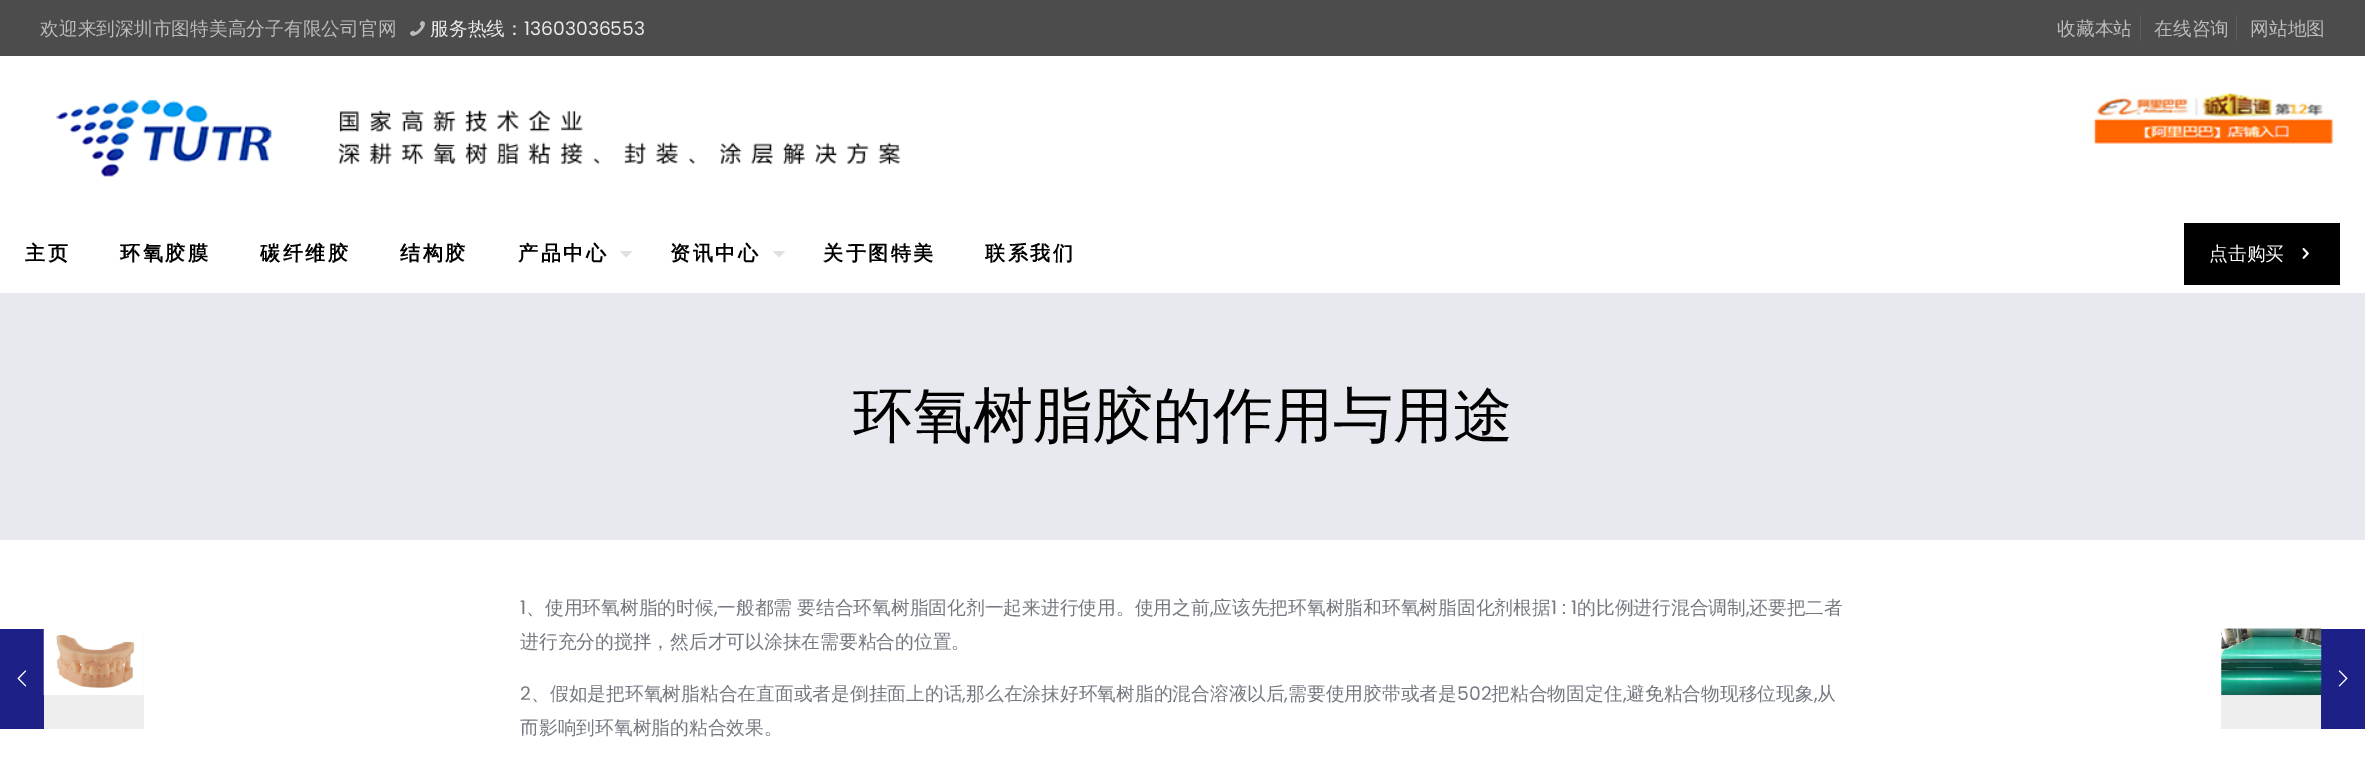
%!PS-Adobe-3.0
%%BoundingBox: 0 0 2365 778
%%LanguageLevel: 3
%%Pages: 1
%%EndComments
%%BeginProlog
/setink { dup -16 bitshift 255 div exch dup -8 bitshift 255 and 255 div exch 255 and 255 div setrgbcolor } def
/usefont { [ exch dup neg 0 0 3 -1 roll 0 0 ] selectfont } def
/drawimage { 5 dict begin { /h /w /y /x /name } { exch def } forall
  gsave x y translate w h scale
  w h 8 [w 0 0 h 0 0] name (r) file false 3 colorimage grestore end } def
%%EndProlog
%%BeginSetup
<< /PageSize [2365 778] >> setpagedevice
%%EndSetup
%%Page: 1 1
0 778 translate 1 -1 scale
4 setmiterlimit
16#FFFFFF setink
0 0 2365 778 rectfill
16#4C4C4C setink
0 0 2365 56 rectfill
/WenQuanYiZenHei-Medium 18.75 usefont
16#BBBBBB setink
40 35 moveto (欢迎来到深圳市图特美高分子有限公司官网) show
(img1.raw) 410 20 15 16 drawimage
16#EAEAEA setink
430 35 moveto (服务热线：) show
/Poppins-Regular 18.75 usefont
524 35 moveto (13603036553) show
16#5E5E5E setink
2140 15 1 26 rectfill
/WenQuanYiZenHei-Medium 18.75 usefont
16#BBBBBB setink
2057 35 moveto (收藏本站) show
16#5E5E5E setink
2236 15 1 26 rectfill
16#BBBBBB setink
2154 35 moveto (在线咨询) show
2250 35 moveto (网站地图) show
(img2.raw) 56 99 845 78 drawimage
(img3.raw) 2093 92 241 52 drawimage
/WenQuanYiZenHei-Bold 20 usefont
16#000000 setink
25 260 moveto 2.5 0 (主页) ashow
120 260 moveto 2.5 0 (环氧胶膜) ashow
260 260 moveto 2.5 0 (碳纤维胶) ashow
400 260 moveto 2.5 0 (结构胶) ashow
518 260 moveto 2.5 0 (产品中心) ashow
16#E0E0E0 setink
620 251 moveto 632.5 251 lineto 626 257.5 lineto closepath fill
16#000000 setink
670 260 moveto 2.5 0 (资讯中心) ashow
16#E0E0E0 setink
772.5 251 moveto 785 251 lineto 779 257.5 lineto closepath fill
16#000000 setink
823 260 moveto 2.5 0 (关于图特美) ashow
985 260 moveto 2.5 0 (联系我们) ashow
2184 223 156 62 rectfill
/WenQuanYiZenHei-Medium 18.75 usefont
16#FFFFFF setink
2209 260 moveto (点击购买) show
(img4.raw) 2302 248 7 11 drawimage
16#E7E9EE setink
0 293 2365 247 rectfill
/WenQuanYiZenHei-Medium 60 usefont
16#000000 setink
853 436 moveto (环氧树脂胶的作用与用途) show
/Poppins-Regular 18.75 usefont
16#747880 setink
520 614 moveto (1) show
/WenQuanYiZenHei-Medium 18.75 usefont
526 614 moveto (、使用环氧树脂的时候) show
/Poppins-Regular 18.75 usefont
714 614 moveto (,) show
/WenQuanYiZenHei-Medium 18.75 usefont
717 614 moveto (一般都需) show
797 614 moveto (要结合环氧树脂固化剂一起来进行使用。使用之前) show
/Poppins-Regular 18.75 usefont
1210 614 moveto (,) show
/WenQuanYiZenHei-Medium 18.75 usefont
1213 614 moveto (应该先把环氧树脂和环氧树脂固化剂根据) show
/Poppins-Regular 18.75 usefont
1551 614 moveto (1 : 1) show
/WenQuanYiZenHei-Medium 18.75 usefont
1577 614 moveto (的比例进行混合调制) show
/Poppins-Regular 18.75 usefont
1746 614 moveto (,) show
/WenQuanYiZenHei-Medium 18.75 usefont
1749 614 moveto (还要把二者) show
520 648 moveto (进行充分的搅拌，然后才可以涂抹在需要粘合的位置。) show
/Poppins-Regular 18.75 usefont
520 700 moveto (2) show
/WenQuanYiZenHei-Medium 18.75 usefont
531 700 moveto (、假如是把环氧树脂粘合在直面或者是倒挂面上的话) show
/Poppins-Regular 18.75 usefont
962 700 moveto (,) show
/WenQuanYiZenHei-Medium 18.75 usefont
966 700 moveto (那么在涂抹好环氧树脂的混合溶液以后) show
/Poppins-Regular 18.75 usefont
1284 700 moveto (,) show
/WenQuanYiZenHei-Medium 18.75 usefont
1288 700 moveto (需要使用胶带或者是) show
/Poppins-Regular 18.75 usefont
1457 700 moveto (502) show
/WenQuanYiZenHei-Medium 18.75 usefont
1491 700 moveto (把粘合物固定住) show
/Poppins-Regular 18.75 usefont
1623 700 moveto (,) show
/WenQuanYiZenHei-Medium 18.75 usefont
1626 700 moveto (避免粘合物现移位现象) show
/Poppins-Regular 18.75 usefont
1814 700 moveto (,) show
/WenQuanYiZenHei-Medium 18.75 usefont
1817 700 moveto (从) show
520 734 moveto (而影响到环氧树脂的粘合效果。) show
(img5.raw) 2221 628 101 1 drawimage
16#1D2087 setink
0 629 44 100 rectfill
(img6.raw) 17 670 10 17 drawimage
16#EEEEEE setink
44 629 100 100 rectfill
(img7.raw) 43 629 101 66 drawimage
2221 629 100 100 rectfill
16#1D2087 setink
2321 629 44 100 rectfill
(img8.raw) 2221 628 101 68 drawimage
(img9.raw) 2338 670 10 17 drawimage
showpage
%%EOF
